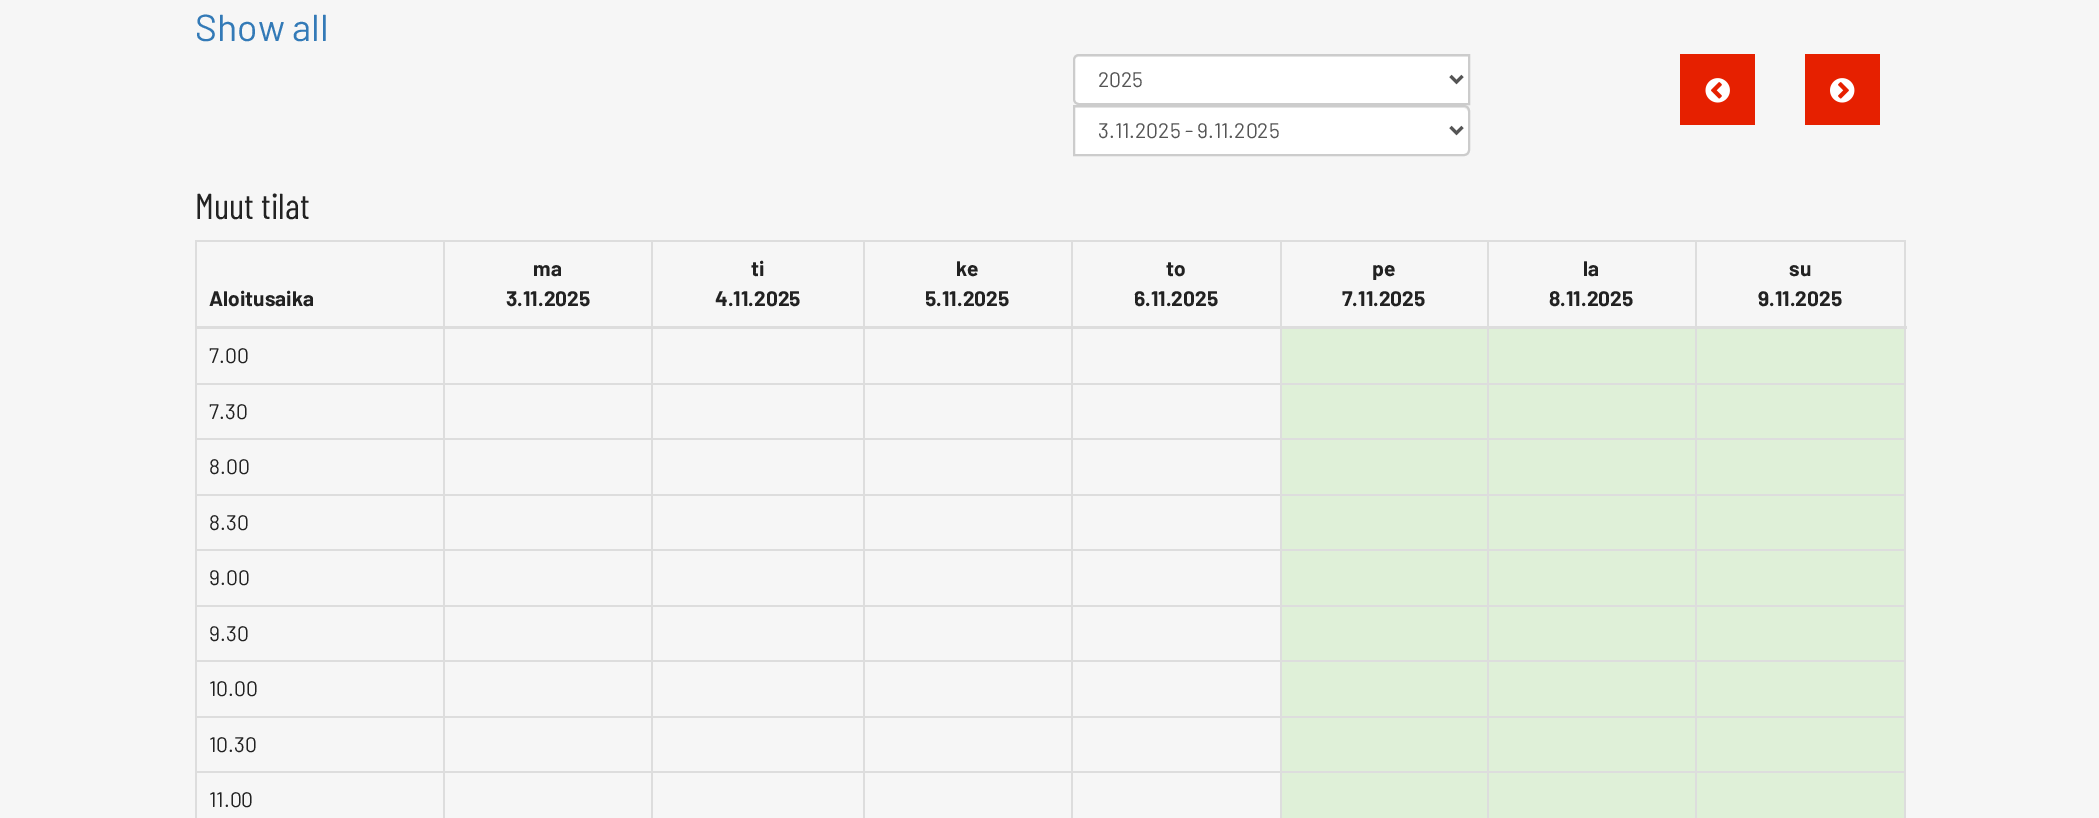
%!PS-Adobe-3.0
%%BoundingBox: 0 0 2099 818
%%LanguageLevel: 3
%%Pages: 1
%%EndComments
%%BeginProlog
/setink { dup -16 bitshift 255 div exch dup -8 bitshift 255 and 255 div exch 255 and 255 div setrgbcolor } def
/usefont { [ exch dup neg 0 0 3 -1 roll 0 0 ] selectfont } def
/drawimage { 5 dict begin { /h /w /y /x /name } { exch def } forall
  gsave x y translate w h scale
  w h 8 [w 0 0 h 0 0] name (r) file false 3 colorimage grestore end } def
%%EndProlog
%%BeginSetup
<< /PageSize [2099 818] >> setpagedevice
%%EndSetup
%%Page: 1 1
0 818 translate 1 -1 scale
4 setmiterlimit
16#F6F6F6 setink
0 0 2099 818 rectfill
/Barlow-Regular 37.5 usefont
16#337AB7 setink
195 41 moveto (Show all) show
16#FFFFFF setink
1079 54 moveto 1470 54 lineto 1470 105 lineto 1079 105 lineto 1075.5 105 1073 102.5 1073 99 curveto 1073 60 lineto 1073 56.5 1075.5 54 1079 54 curveto closepath fill
16#ECECEC setink
1078 57 moveto 1468 57 lineto 1468 104 lineto 1469 104 lineto 1469 56 lineto 1079 56 lineto 1076 56 1074 59 1074 62 curveto 1074 59 1076 57 1078 57 curveto closepath fill
16#CCCCCC setink
2 setlinewidth
1079 55 moveto 1469 55 lineto 1469 104 lineto 1079 104 lineto 1076 104 1074 102 1074 99 curveto 1074 60 lineto 1074 57 1076 55 1079 55 curveto closepath stroke
16#555555 setink
3 setlinewidth
1450.5 76 moveto 1456.5 82 lineto 1462.5 76 lineto stroke
/Barlow-Regular 21 usefont
1098 87 moveto (2025) show
16#FFFFFF setink
1073 105 moveto 1464 105 lineto 1467.5 105 1470 107.5 1470 111 curveto 1470 150 lineto 1470 153.5 1467.5 156 1464 156 curveto 1073 156 lineto closepath fill
16#ECECEC setink
1074 108 moveto 1464 108 lineto 1466 108 1468 110 1468 112 curveto 1468 153 lineto 1469 152 1469 151 1469 150 curveto 1469 112 lineto 1469 109 1467 107 1464 107 curveto 1074 107 lineto closepath fill
16#CCCCCC setink
2 setlinewidth
1074 106 moveto 1464 106 lineto 1467 106 1469 108 1469 111 curveto 1469 150 lineto 1469 153 1467 155 1464 155 curveto 1074 155 lineto closepath stroke
16#555555 setink
3 setlinewidth
1450.5 127 moveto 1456.5 133 lineto 1462.5 127 lineto stroke
1098 138 moveto (3.11.2025 - 9.11.2025) show
16#E62000 setink
1680 54 75 71 rectfill
(img1.raw) 1705 78 25 25 drawimage
1805 54 75 71 rectfill
(img2.raw) 1830 78 25 25 drawimage
/BarlowCondensed-Regular 36 usefont
16#222222 setink
195 219 moveto (Muut tilat) show
[
    [195 240 1710 2 16#DDDDDD]
    [1904 240 2 578 16#DDDDDD]
    [195 240 2 578 16#DDDDDD]
] { aload pop setink rectfill } forall
/Barlow-Bold 21 usefont
16#222222 setink
[
    [(Aloitusaika) 209 306]
    [(ma) 533 276]
    [(3.11.2025) 506 306]
    [(ti) 751 276]
    [(4.11.2025) 715 306]
    [(ke) 956 276]
    [(5.11.2025) 925 306]
    [(to) 1166 276]
    [(6.11.2025) 1134 306]
    [(pe) 1372 276]
    [(7.11.2025) 1342 306]
    [(la) 1583 276]
    [(8.11.2025) 1549 306]
] { aload pop moveto show } forall
[
    [1695 383 210 2 16#DDDDDD]
    [1695 438 210 2 16#DDDDDD]
    [1695 494 210 2 16#DDDDDD]
    [1695 549 210 2 16#DDDDDD]
    [1695 605 210 2 16#DDDDDD]
    [1695 660 210 2 16#DDDDDD]
    [1695 716 210 2 16#DDDDDD]
    [1695 771 210 2 16#DDDDDD]
    [1695 771 2 47 16#DDDDDD]
    [1487 771 210 2 16#DDDDDD]
    [1695 716 2 57 16#DDDDDD]
    [1487 716 210 2 16#DDDDDD]
    [1695 660 2 57 16#DDDDDD]
    [1487 660 210 2 16#DDDDDD]
    [1695 605 2 57 16#DDDDDD]
    [1487 605 210 2 16#DDDDDD]
    [1695 549 2 57 16#DDDDDD]
    [1487 549 210 2 16#DDDDDD]
    [1695 494 2 57 16#DDDDDD]
    [1487 494 210 2 16#DDDDDD]
    [1695 438 2 57 16#DDDDDD]
    [1487 438 210 2 16#DDDDDD]
    [1695 383 2 57 16#DDDDDD]
    [1487 383 210 2 16#DDDDDD]
    [1487 771 2 47 16#DDDDDD]
    [1280 771 208 2 16#DDDDDD]
    [1487 716 2 57 16#DDDDDD]
    [1280 716 208 2 16#DDDDDD]
    [1487 660 2 57 16#DDDDDD]
    [1280 660 208 2 16#DDDDDD]
    [1487 605 2 57 16#DDDDDD]
    [1280 605 208 2 16#DDDDDD]
    [1487 549 2 57 16#DDDDDD]
    [1280 549 208 2 16#DDDDDD]
    [1487 494 2 57 16#DDDDDD]
    [1280 494 208 2 16#DDDDDD]
    [1487 438 2 57 16#DDDDDD]
    [1280 438 208 2 16#DDDDDD]
    [1487 383 2 57 16#DDDDDD]
    [1280 383 208 2 16#DDDDDD]
    [1280 771 2 47 16#DDDDDD]
    [1071 771 210 2 16#DDDDDD]
    [1280 716 2 57 16#DDDDDD]
    [1071 716 210 2 16#DDDDDD]
    [1280 660 2 57 16#DDDDDD]
    [1071 660 210 2 16#DDDDDD]
    [1280 605 2 57 16#DDDDDD]
    [1071 605 210 2 16#DDDDDD]
    [1280 549 2 57 16#DDDDDD]
    [1071 549 210 2 16#DDDDDD]
    [1280 494 2 57 16#DDDDDD]
    [1071 494 210 2 16#DDDDDD]
    [1280 438 2 57 16#DDDDDD]
    [1071 438 210 2 16#DDDDDD]
    [1280 383 2 57 16#DDDDDD]
    [1071 383 210 2 16#DDDDDD]
    [1071 771 2 47 16#DDDDDD]
    [863 771 210 2 16#DDDDDD]
    [1071 716 2 57 16#DDDDDD]
    [863 716 210 2 16#DDDDDD]
    [1071 660 2 57 16#DDDDDD]
    [863 660 210 2 16#DDDDDD]
    [1071 605 2 57 16#DDDDDD]
    [863 605 210 2 16#DDDDDD]
    [1071 549 2 57 16#DDDDDD]
    [863 549 210 2 16#DDDDDD]
    [1071 494 2 57 16#DDDDDD]
    [863 494 210 2 16#DDDDDD]
    [1071 438 2 57 16#DDDDDD]
    [863 438 210 2 16#DDDDDD]
    [1071 383 2 57 16#DDDDDD]
    [863 383 210 2 16#DDDDDD]
    [863 771 2 47 16#DDDDDD]
    [651 771 213 2 16#DDDDDD]
    [863 716 2 57 16#DDDDDD]
    [651 716 213 2 16#DDDDDD]
    [863 660 2 57 16#DDDDDD]
    [651 660 213 2 16#DDDDDD]
    [863 605 2 57 16#DDDDDD]
    [651 605 213 2 16#DDDDDD]
    [863 549 2 57 16#DDDDDD]
    [651 549 213 2 16#DDDDDD]
    [863 494 2 57 16#DDDDDD]
    [651 494 213 2 16#DDDDDD]
    [863 438 2 57 16#DDDDDD]
    [651 438 213 2 16#DDDDDD]
    [863 383 2 57 16#DDDDDD]
    [651 383 213 2 16#DDDDDD]
    [651 771 2 47 16#DDDDDD]
    [443 771 210 2 16#DDDDDD]
    [651 716 2 57 16#DDDDDD]
    [443 716 210 2 16#DDDDDD]
    [651 660 2 57 16#DDDDDD]
    [443 660 210 2 16#DDDDDD]
    [651 605 2 57 16#DDDDDD]
    [443 605 210 2 16#DDDDDD]
    [651 549 2 57 16#DDDDDD]
    [443 549 210 2 16#DDDDDD]
    [651 494 2 57 16#DDDDDD]
    [443 494 210 2 16#DDDDDD]
    [651 438 2 57 16#DDDDDD]
    [443 438 210 2 16#DDDDDD]
    [651 383 2 57 16#DDDDDD]
    [443 383 210 2 16#DDDDDD]
    [443 771 2 47 16#DDDDDD]
    [195 771 249 2 16#DDDDDD]
    [443 716 2 57 16#DDDDDD]
    [195 716 249 2 16#DDDDDD]
    [443 660 2 57 16#DDDDDD]
    [195 660 249 2 16#DDDDDD]
    [443 605 2 57 16#DDDDDD]
    [195 605 249 2 16#DDDDDD]
    [443 549 2 57 16#DDDDDD]
    [195 549 249 2 16#DDDDDD]
    [443 494 2 57 16#DDDDDD]
    [195 494 249 2 16#DDDDDD]
    [443 438 2 57 16#DDDDDD]
    [195 438 249 2 16#DDDDDD]
    [443 383 2 57 16#DDDDDD]
    [195 383 249 2 16#DDDDDD]
    [443 240 2 144 16#DDDDDD]
    [651 240 2 144 16#DDDDDD]
    [863 240 2 144 16#DDDDDD]
    [1071 240 2 144 16#DDDDDD]
    [1280 240 2 144 16#DDDDDD]
    [1487 240 2 144 16#DDDDDD]
    [1695 240 2 144 16#DDDDDD]
    [195 326 1712 3 16#DDDDDD]
] { aload pop setink rectfill } forall
16#222222 setink
1789 276 moveto (su) show
1758 306 moveto (9.11.2025) show
/Barlow-Regular 21 usefont
209 363 moveto (7.00) show
[
    [1282 329 205 54 16#DFF0D8]
    [1489 329 206 54 16#DFF0D8]
    [1697 329 207 54 16#DFF0D8]
] { aload pop setink rectfill } forall
16#222222 setink
209 419 moveto (7.30) show
[
    [1282 385 205 53 16#DFF0D8]
    [1489 385 206 53 16#DFF0D8]
    [1697 385 207 53 16#DFF0D8]
] { aload pop setink rectfill } forall
16#222222 setink
209 474 moveto (8.00) show
[
    [1282 440 205 54 16#DFF0D8]
    [1489 440 206 54 16#DFF0D8]
    [1697 440 207 54 16#DFF0D8]
] { aload pop setink rectfill } forall
16#222222 setink
209 530 moveto (8.30) show
[
    [1282 496 205 53 16#DFF0D8]
    [1489 496 206 53 16#DFF0D8]
    [1697 496 207 53 16#DFF0D8]
] { aload pop setink rectfill } forall
16#222222 setink
209 585 moveto (9.00) show
[
    [1282 551 205 54 16#DFF0D8]
    [1489 551 206 54 16#DFF0D8]
    [1697 551 207 54 16#DFF0D8]
] { aload pop setink rectfill } forall
16#222222 setink
209 641 moveto (9.30) show
[
    [1282 607 205 53 16#DFF0D8]
    [1489 607 206 53 16#DFF0D8]
    [1697 607 207 53 16#DFF0D8]
] { aload pop setink rectfill } forall
16#222222 setink
209 696 moveto (10.00) show
[
    [1282 662 205 54 16#DFF0D8]
    [1489 662 206 54 16#DFF0D8]
    [1697 662 207 54 16#DFF0D8]
] { aload pop setink rectfill } forall
16#222222 setink
209 752 moveto (10.30) show
[
    [1282 718 205 53 16#DFF0D8]
    [1489 718 206 53 16#DFF0D8]
    [1697 718 207 53 16#DFF0D8]
] { aload pop setink rectfill } forall
16#222222 setink
209 807 moveto (11.00) show
[
    [1282 773 205 45 16#DFF0D8]
    [1489 773 206 45 16#DFF0D8]
    [1697 773 207 45 16#DFF0D8]
] { aload pop setink rectfill } forall
showpage
%%EOF
